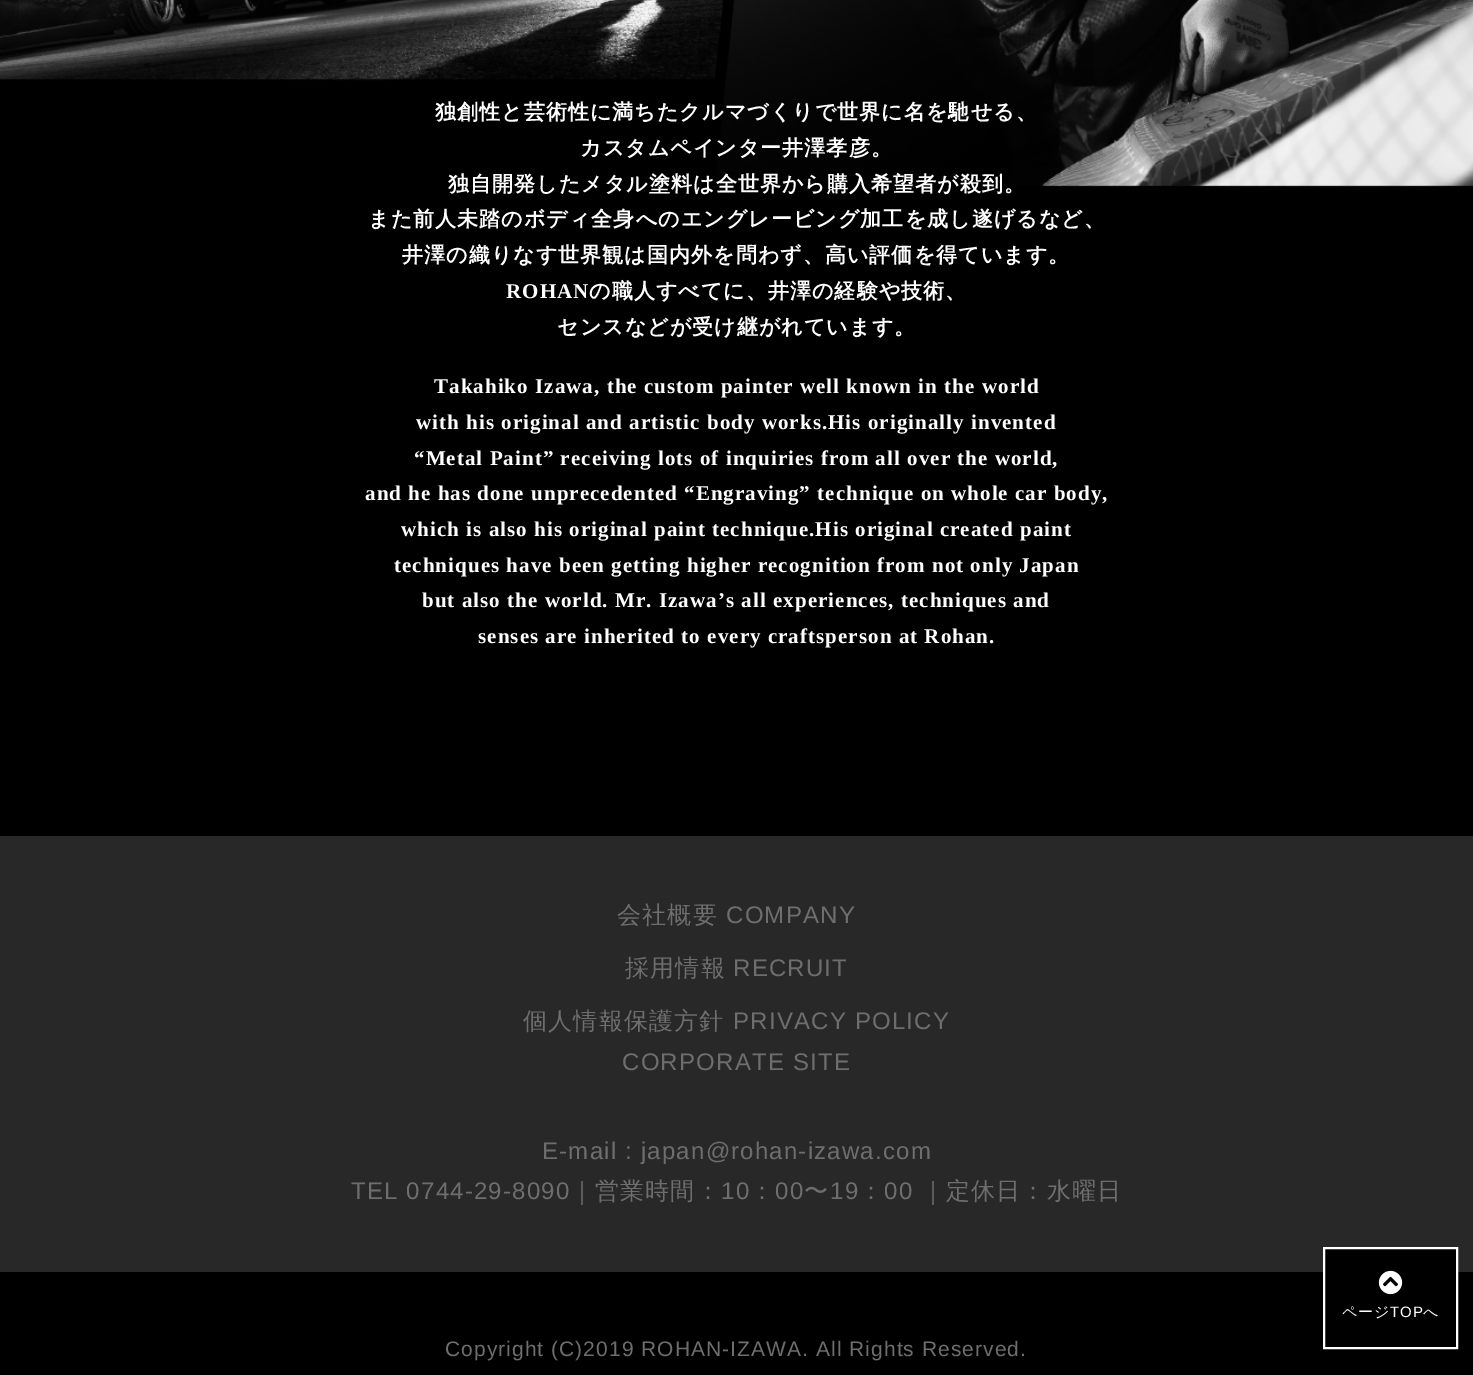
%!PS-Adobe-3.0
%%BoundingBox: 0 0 1473 1375
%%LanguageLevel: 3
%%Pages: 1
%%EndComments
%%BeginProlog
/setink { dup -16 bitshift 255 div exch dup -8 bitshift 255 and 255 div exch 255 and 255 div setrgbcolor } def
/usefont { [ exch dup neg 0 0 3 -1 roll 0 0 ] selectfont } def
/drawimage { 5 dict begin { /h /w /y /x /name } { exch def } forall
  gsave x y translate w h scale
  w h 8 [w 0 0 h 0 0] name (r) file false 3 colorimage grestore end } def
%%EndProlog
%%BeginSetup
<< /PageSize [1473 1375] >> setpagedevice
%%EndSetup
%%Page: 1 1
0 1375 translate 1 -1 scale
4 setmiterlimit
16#000000 setink
0 0 1473 1375 rectfill
(img1.raw) 0 0 1473 187 drawimage
/WenQuanYiZenHei-Bold 21 usefont
16#FFFFFF setink
435 119 moveto 1.05 0 (独創性と芸術性に満ちたクルマづくりで世界に名を馳せる、) ashow
580 155 moveto 1.05 0 (カスタムペインター井澤孝彦。) ashow
448 191 moveto 1.05 0 (独自開発したメタル塗料は全世界から購入希望者が殺到。) ashow
368 226 moveto 1.05 0 (また前人未踏のボディ全身へのエングレービング加工を成し遂げるなど、) ashow
402 262 moveto 1.05 0 (井澤の織りなす世界観は国内外を問わず、高い評価を得ています。) ashow
/LiberationSerif-Bold 21 usefont
506 298 moveto 1.05 0 (ROHAN) ashow
/WenQuanYiZenHei-Bold 21 usefont
589 298 moveto 1.05 0 (の職人すべてに、井澤の経験や技術、) ashow
557 334 moveto 1.05 0 (センスなどが受け継がれています。) ashow
/LiberationSerif-Bold 21 usefont
434 393 moveto 1.05 0 (Takahiko Izawa, the custom painter well known in the world) ashow
416 429 moveto 1.05 0 (with his original and artistic body works.His originally invented) ashow
414 465 moveto 1.05 0 (“Metal Paint” receiving lots of inquiries from all over the world,) ashow
365 500 moveto 1.05 0 (and he has done unprecedented “Engraving” technique on whole car body,) ashow
401 536 moveto 1.05 0 (which is also his original paint technique.His original created paint) ashow
394 572 moveto 1.05 0 (techniques have been getting higher recognition from not only Japan) ashow
422 607 moveto 1.05 0 (but also the world. Mr. Izawa’s all experiences, techniques and) ashow
478 643 moveto 1.05 0 (senses are inherited to every craftsperson at Rohan.) ashow
16#282828 setink
0 836 1473 436 rectfill
/WenQuanYiZenHei-Medium 24 usefont
16#6E6E6E setink
617 923 moveto 1.2 0 (会社概要) ashow
/LiberationSans-Regular 24 usefont
726 923 moveto 1.2 0 (COMPANY) ashow
/WenQuanYiZenHei-Medium 24 usefont
625 976 moveto 1.2 0 (採用情報) ashow
/LiberationSans-Regular 24 usefont
733 976 moveto 1.2 0 (RECRUIT) ashow
/WenQuanYiZenHei-Medium 24 usefont
523 1029 moveto 1.2 0 (個人情報保護方針) ashow
/LiberationSans-Regular 24 usefont
733 1029 moveto 1.2 0 (PRIVACY POLICY) ashow
622 1070 moveto 1.2 0 (CORPORATE SITE) ashow
542 1159 moveto 1.2 0 (E-mail : japan@rohan-izawa.com) ashow
351 1199 moveto 1.2 0 (TEL 0744-29-8090) ashow
/WenQuanYiZenHei-Medium 24 usefont
570 1199 moveto 1.2 0 (｜営業時間：) ashow
/LiberationSans-Regular 24 usefont
721 1199 moveto 1.2 0 (10) ashow
/WenQuanYiZenHei-Medium 24 usefont
750 1199 moveto 1.2 0 (：) ashow
/LiberationSans-Regular 24 usefont
775 1199 moveto 1.2 0 (00) ashow
/WenQuanYiZenHei-Medium 24 usefont
804 1199 moveto 1.2 0 (〜) ashow
/LiberationSans-Regular 24 usefont
830 1199 moveto 1.2 0 (19) ashow
/WenQuanYiZenHei-Medium 24 usefont
859 1199 moveto 1.2 0 (：) ashow
/LiberationSans-Regular 24 usefont
884 1199 moveto 1.2 0 (00) ashow
/WenQuanYiZenHei-Medium 24 usefont
921 1199 moveto 1.2 0 (｜定休日：水曜日) ashow
16#000000 setink
1325 1249 131 23 rectfill
16#FFFFFF setink
2 setlinewidth
1324 1248 133 100 rectstroke
(img2.raw) 1378 1270 25 25 drawimage
/WenQuanYiZenHei-Medium 15 usefont
1342 1317 moveto 1 0 (ページ) ashow
/LiberationSans-Regular 15 usefont
1390 1317 moveto 1 0 (TOP) ashow
/WenQuanYiZenHei-Medium 15 usefont
1423 1317 moveto 1 0 (へ) ashow
/LiberationSans-Regular 21 usefont
16#6E6E6E setink
445 1356 moveto 1.05 0 (Copyright \(C\)2019 ROHAN-IZAWA. All Rights Reserved.) ashow
showpage
%%EOF
